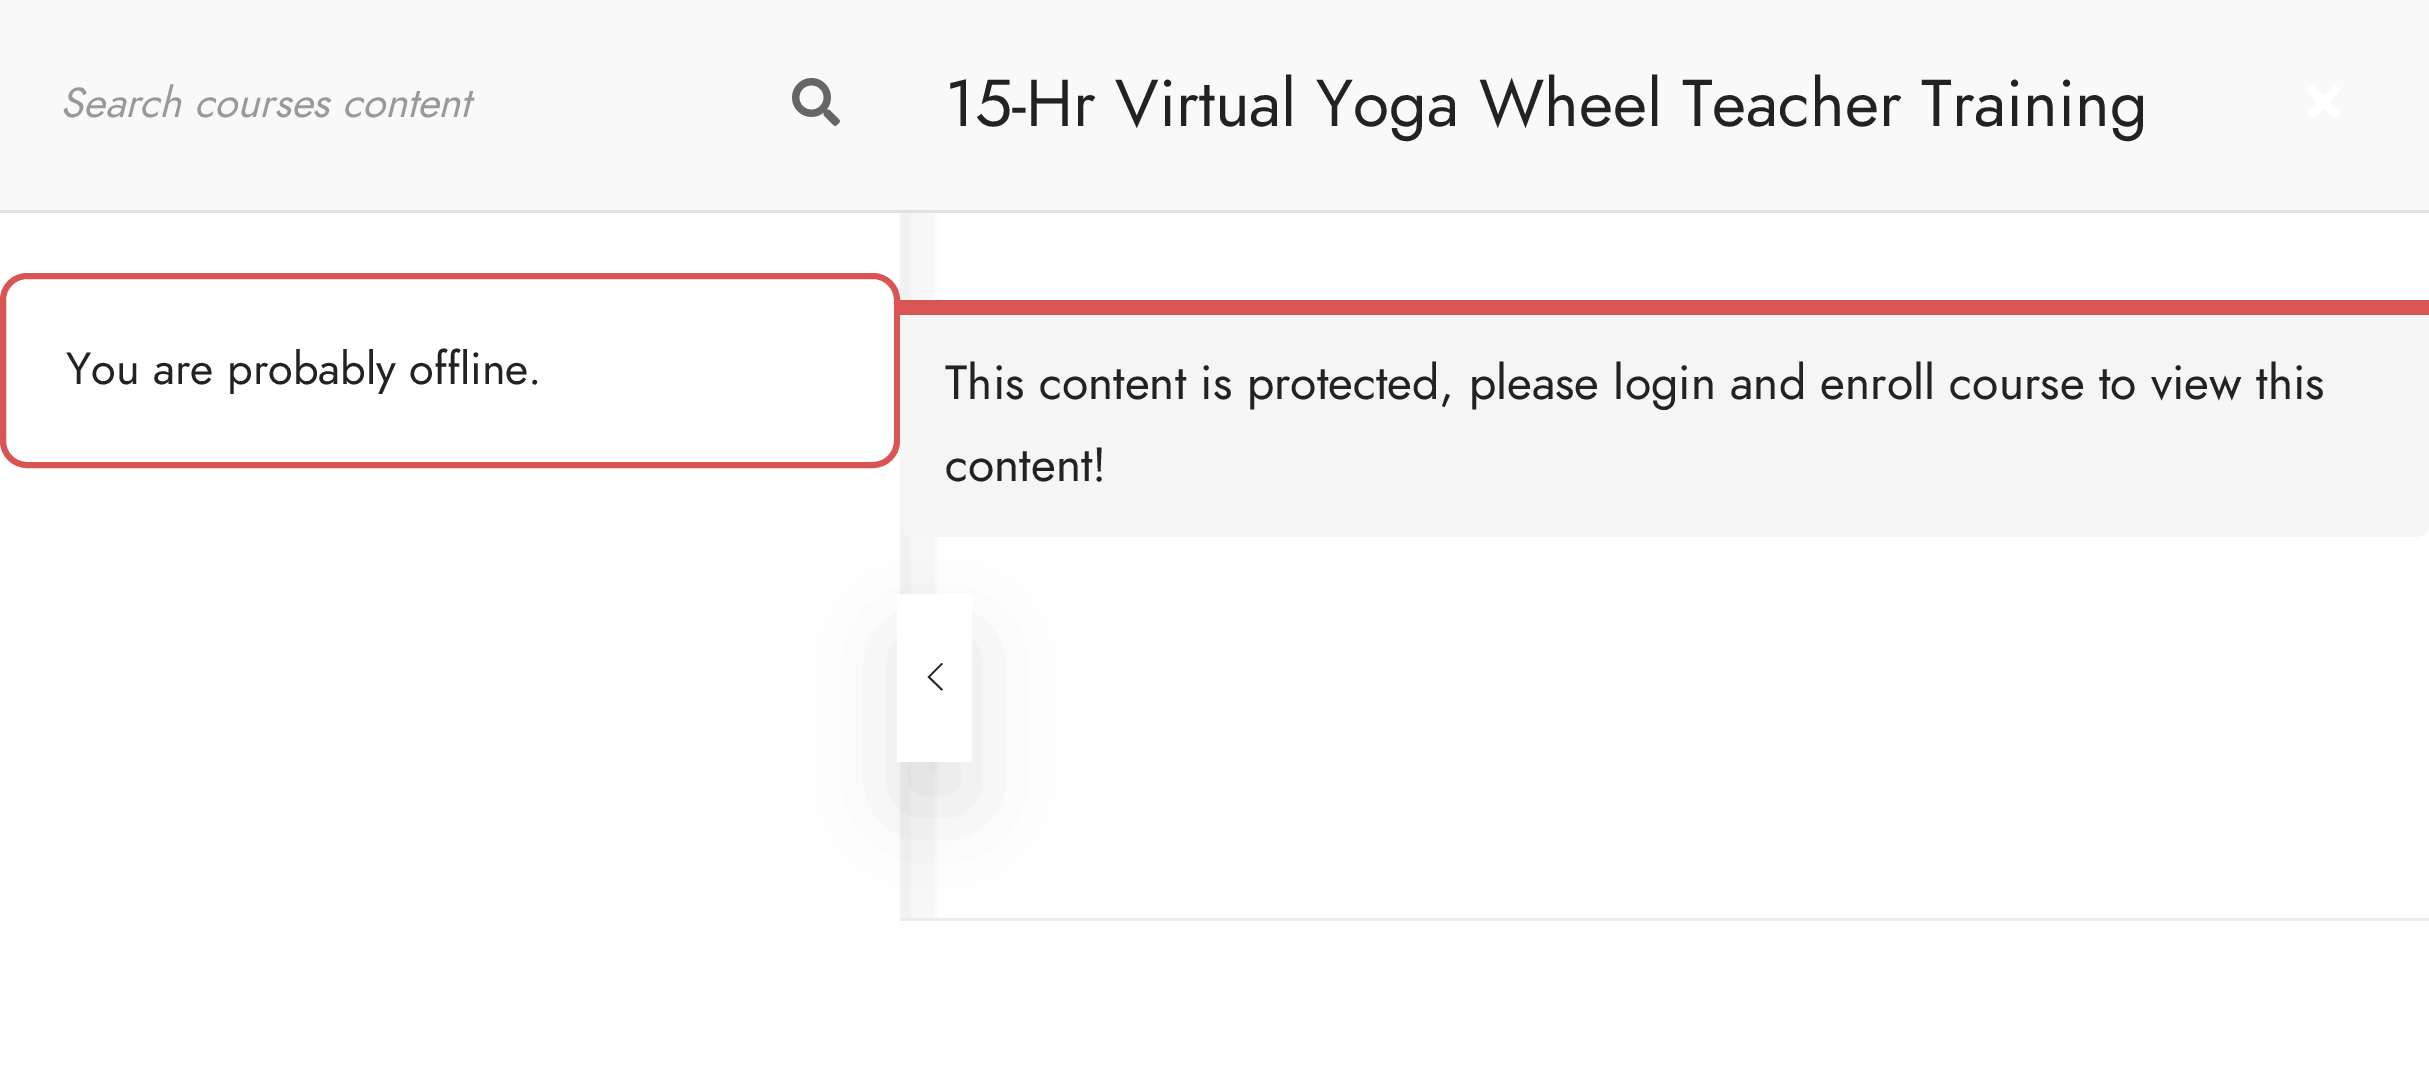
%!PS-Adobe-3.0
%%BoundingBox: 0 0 2429 1071
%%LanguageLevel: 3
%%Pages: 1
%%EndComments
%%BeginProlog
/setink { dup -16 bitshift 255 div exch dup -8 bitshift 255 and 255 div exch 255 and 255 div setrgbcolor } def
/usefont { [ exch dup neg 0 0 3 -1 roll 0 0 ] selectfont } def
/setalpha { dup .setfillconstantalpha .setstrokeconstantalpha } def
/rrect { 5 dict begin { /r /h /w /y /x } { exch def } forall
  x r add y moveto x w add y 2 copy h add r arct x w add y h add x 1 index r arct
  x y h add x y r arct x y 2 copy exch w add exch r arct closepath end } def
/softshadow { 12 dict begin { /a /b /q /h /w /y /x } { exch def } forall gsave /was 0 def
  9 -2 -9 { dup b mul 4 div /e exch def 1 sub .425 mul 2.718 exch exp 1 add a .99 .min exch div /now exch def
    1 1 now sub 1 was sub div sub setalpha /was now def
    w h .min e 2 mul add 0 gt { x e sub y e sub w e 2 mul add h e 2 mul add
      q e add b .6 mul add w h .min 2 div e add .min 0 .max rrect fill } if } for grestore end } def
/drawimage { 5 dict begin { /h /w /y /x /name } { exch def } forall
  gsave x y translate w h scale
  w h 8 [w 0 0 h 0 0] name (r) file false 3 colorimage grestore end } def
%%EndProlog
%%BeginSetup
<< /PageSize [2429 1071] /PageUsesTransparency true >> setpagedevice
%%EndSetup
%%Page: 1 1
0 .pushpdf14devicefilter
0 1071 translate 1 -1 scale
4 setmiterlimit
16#FFFFFF setink
0 0 2429 1071 rectfill
gsave
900 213 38 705 rectclip
16#000000 setink
0 45 900 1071 0 45 0.1 softshadow
grestore
16#F9F9F9 setink
0 0 2429 210 rectfill
16#E1E1E1 setink
0 210 2429 3 rectfill
/Jost-Italic 42 usefont
16#999999 setink
60 117 moveto (Search courses content) show
(img1.raw) 792 78 48 48 drawimage
16#D85554 setink
6 setlinewidth
3 276 894 189 24 rrect stroke
/Jost-Regular 45 usefont
16#222222 setink
66 384 moveto (You are probably offline.) show
/Jost-Regular 66 usefont
945 126 moveto (15-Hr Virtual Yoga Wheel Teacher Training) show
(img2.raw) 2307 86 33 32 drawimage
16#F5F5F5 setink
900 300 moveto 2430 300 lineto 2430 522 lineto 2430 530.5 2423.5 537 2415 537 curveto 915 537 lineto 906.5 537 900 530.5 900 522 curveto closepath fill
16#D85554 setink
900 300 1529 15 rectfill
/Jost-Regular 48 usefont
16#222222 setink
945 399 moveto (This content is protected, please login and enroll course to view this) show
945 481 moveto (content!) show
16#000000 setink
897 639 75 168 0 45 0.1 softshadow
16#FFFFFF setink
897 594 75 168 rectfill
16#222222 setink
930 677 moveto 943 689.5 lineto 941.5 690.5 lineto 927.5 677 lineto 941.5 663 lineto 943 664 lineto closepath fill
16#FFFFFF setink
900 921 59 150 rectfill
16#EBEBEB setink
900 918 1529 3 rectfill
.poppdf14devicefilter showpage
%%EOF
